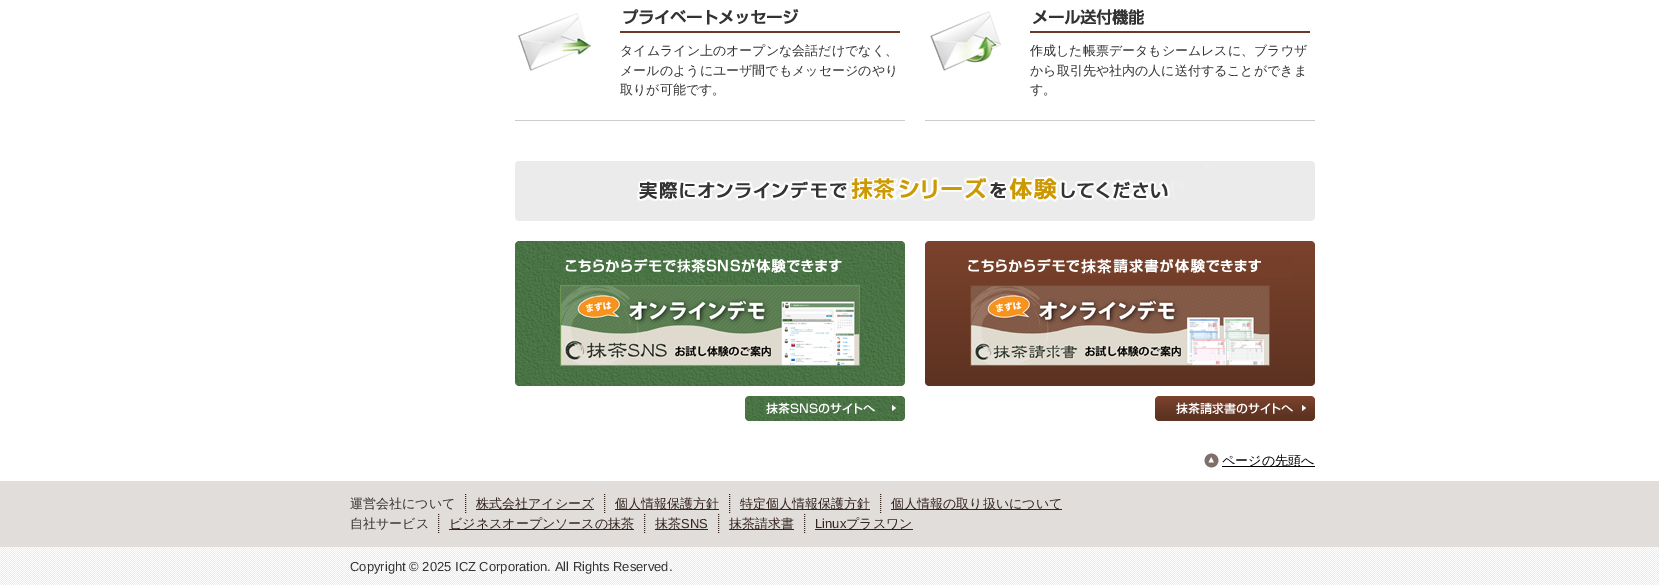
%!PS-Adobe-3.0
%%BoundingBox: 0 0 1659 585
%%LanguageLevel: 3
%%Pages: 1
%%EndComments
%%BeginProlog
/setink { dup -16 bitshift 255 div exch dup -8 bitshift 255 and 255 div exch 255 and 255 div setrgbcolor } def
/usefont { [ exch dup neg 0 0 3 -1 roll 0 0 ] selectfont } def
/drawimage { 5 dict begin { /h /w /y /x /name } { exch def } forall
  gsave x y translate w h scale
  w h 8 [w 0 0 h 0 0] name (r) file false 3 colorimage grestore end } def
%%EndProlog
%%BeginSetup
<< /PageSize [1659 585] >> setpagedevice
%%EndSetup
%%Page: 1 1
0 585 translate 1 -1 scale
4 setmiterlimit
16#FFFFFF setink
0 0 1659 585 rectfill
(img1.raw) 518 13 73 58 drawimage
16#CCCCCC setink
515 120 390 1 rectfill
(img2.raw) 620 9 280 24 drawimage
/WenQuanYiZenHei-Medium 13 usefont
16#333333 setink
[
    [(タイムライン上のオープンな会話だけでなく、) 620 55]
    [(メールのようにユーザ間でもメッセージのやり) 620 75]
    [(取りが可能です。) 620 94]
] { aload pop moveto show } forall
(img3.raw) 930 11 71 60 drawimage
16#CCCCCC setink
925 120 390 1 rectfill
(img4.raw) 1030 9 280 24 drawimage
16#333333 setink
[
    [(作成した帳票データもシームレスに、ブラウザ) 1030 55]
    [(から取引先や社内の人に送付することができま) 1030 75]
    [(す。) 1030 94]
] { aload pop moveto show } forall
(img5.raw) 515 161 800 60 drawimage
(img6.raw) 515 241 390 145 drawimage
(img7.raw) 560 285 300 81 drawimage
(img8.raw) 745 396 160 25 drawimage
(img9.raw) 925 241 390 145 drawimage
(img10.raw) 970 285 300 81 drawimage
(img11.raw) 1155 396 160 25 drawimage
(img12.raw) 1204 453 15 15 drawimage
16#000000 setink
1222 466 93 1 rectfill
1222 465 moveto (ページの先頭へ) show
16#E0DDDA setink
0 481 1659 66 rectfill
16#333333 setink
350 508 moveto (運営会社について) show
16#34231C setink
[1 1] 0 setdash
465.5 494 moveto 465.5 513 lineto stroke
476 509 118 1 rectfill
476 508 moveto (株式会社アイシーズ) show
604.5 494 moveto 604.5 513 lineto stroke
615 509 104 1 rectfill
615 508 moveto (個人情報保護方針) show
729.5 494 moveto 729.5 513 lineto stroke
740 509 130 1 rectfill
740 508 moveto (特定個人情報保護方針) show
880.5 494 moveto 880.5 513 lineto stroke
891 509 171 1 rectfill
891 508 moveto (個人情報の取り扱いについて) show
16#333333 setink
350 528 moveto (自社サービス) show
16#34231C setink
438.5 514 moveto 438.5 533 lineto stroke
449 529 185 1 rectfill
449 528 moveto (ビジネスオープンソースの抹茶) show
644.5 514 moveto 644.5 533 lineto stroke
655 529 53 1 rectfill
655 528 moveto (抹茶) show
/LiberationSans-Regular 13 usefont
681 528 moveto (SNS) show
718.5 514 moveto 718.5 533 lineto stroke
729 529 65 1 rectfill
/WenQuanYiZenHei-Medium 13 usefont
729 528 moveto (抹茶請求書) show
804.5 514 moveto 804.5 533 lineto stroke
/LiberationSans-Regular 13 usefont
815 528 moveto (Linux) show
815 529 98 1 rectfill
/WenQuanYiZenHei-Medium 13 usefont
846 528 moveto (プラスワン) show
(img13.raw) 0 547 1659 38 drawimage
/LiberationSans-Regular 13 usefont
16#333333 setink
350 571 moveto (Copyright © 2025 ICZ Corporation. All Rights Reserved.) show
showpage
%%EOF
